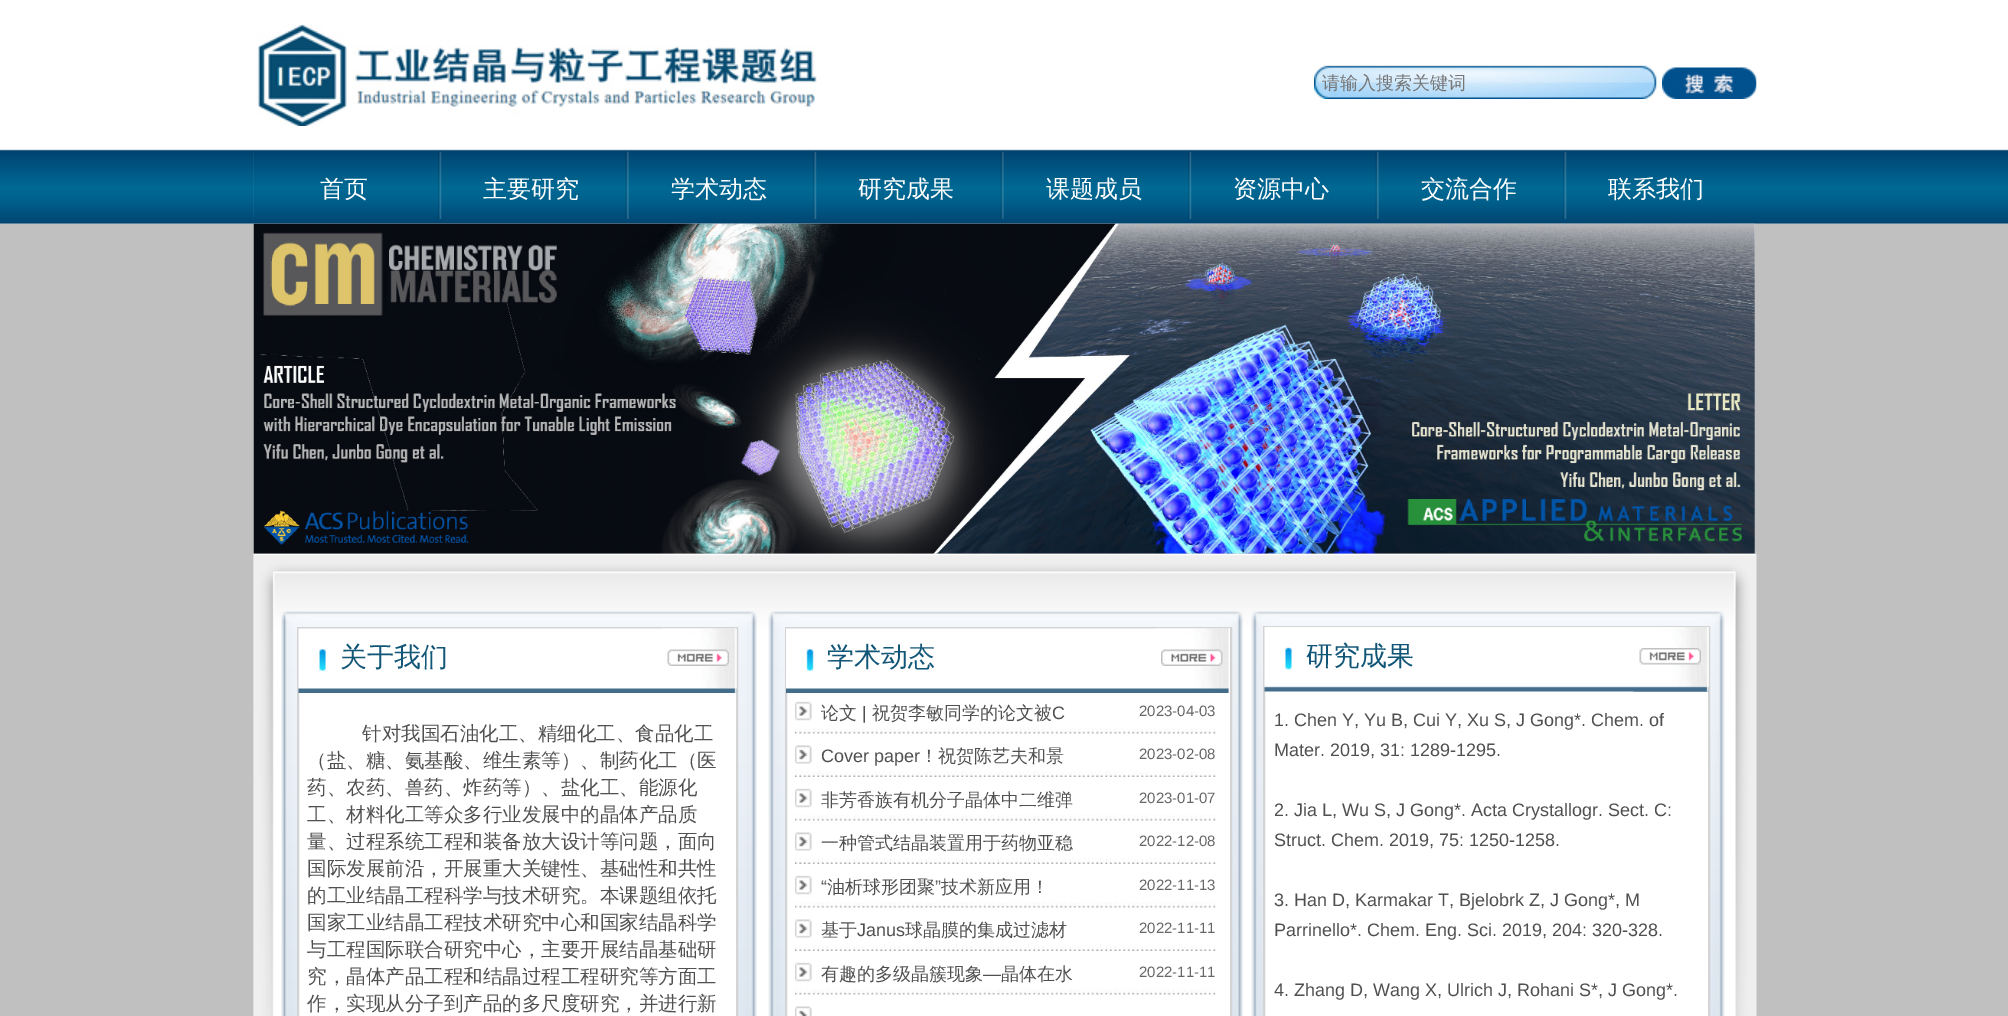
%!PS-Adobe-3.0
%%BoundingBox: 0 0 2008 1016
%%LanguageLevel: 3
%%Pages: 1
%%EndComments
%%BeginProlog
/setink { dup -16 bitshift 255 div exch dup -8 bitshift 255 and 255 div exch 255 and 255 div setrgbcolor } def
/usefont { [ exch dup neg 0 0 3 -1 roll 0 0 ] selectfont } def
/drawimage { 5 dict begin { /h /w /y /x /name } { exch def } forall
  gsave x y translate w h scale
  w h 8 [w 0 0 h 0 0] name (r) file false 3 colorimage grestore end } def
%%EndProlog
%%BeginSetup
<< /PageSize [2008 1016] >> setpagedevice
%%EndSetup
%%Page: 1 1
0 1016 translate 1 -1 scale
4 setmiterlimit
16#FFFFFF setink
0 0 2008 1016 rectfill
(img1.raw) 0 149 2008 867 drawimage
(img12.raw) 253 553 1504 463 drawimage
(img13.raw) 253 553 1502 463 drawimage
(img2.raw) 253 553 1503 1 drawimage
(img3.raw) 257 23 560 103 drawimage
(img4.raw) 1314 65 344 34 drawimage
/WenQuanYiZenHei-Medium 18 usefont
16#767676 setink
1322 89 moveto (请输入搜索关键词) show
(img5.raw) 1662 67 95 32 drawimage
(img6.raw) 253 152 1 67 drawimage
/WenQuanYiZenHei-Medium 24 usefont
16#FFFFFF setink
320 197 moveto (首页) show
(img7.raw) 438 151 4 68 drawimage
483 197 moveto (主要研究) show
(img8.raw) 625 151 4 68 drawimage
671 197 moveto (学术动态) show
(img9.raw) 813 151 4 68 drawimage
858 197 moveto (研究成果) show
(img10.raw) 1000 151 4 68 drawimage
1046 197 moveto (课题成员) show
(img7.raw) 1188 151 4 68 drawimage
1233 197 moveto (资源中心) show
(img8.raw) 1375 151 4 68 drawimage
1421 197 moveto (交流合作) show
(img9.raw) 1563 151 4 68 drawimage
1608 197 moveto (联系我们) show
(img11.raw) 253 223 1502 331 drawimage
(img14.raw) 281 611 476 405 drawimage
(img15.raw) 768 611 475 405 drawimage
(img16.raw) 1251 611 474 405 drawimage
299 693 437 323 rectfill
16#D4D4D4 setink
2 setlinewidth
298 628 439 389 rectstroke
(img17.raw) 298 628 439 65 drawimage
/WenQuanYiZenHei-Medium 27 usefont
16#115577 setink
340 666 moveto (关于我们) show
(img18.raw) 661 628 76 65 drawimage
(img19.raw) 667 649 62 17 drawimage
16#FFFFFF setink
787 693 443 323 rectfill
16#D4D4D4 setink
786 628 445 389 rectstroke
(img20.raw) 786 628 444 65 drawimage
16#115577 setink
827 666 moveto (学术动态) show
(img21.raw) 1155 628 75 65 drawimage
(img22.raw) 1161 649 62 17 drawimage
16#FFFFFF setink
1265 691 443 325 rectfill
16#D4D4D4 setink
1264 627 445 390 rectstroke
(img23.raw) 1264 627 445 65 drawimage
16#115577 setink
1306 665 moveto (研究成果) show
(img24.raw) 1633 627 76 65 drawimage
(img25.raw) 1639 648 62 17 drawimage
/WenQuanYiZenHei-Medium 19.5 usefont
16#505050 setink
[
    [(针对我国石油化工、精细化工、食品化工) 362 740]
    [(（盐、糖、氨基酸、维生素等）、制药化工（医) 307 767]
    [(药、农药、兽药、炸药等）、盐化工、能源化) 307 794]
    [(工、材料化工等众多行业发展中的晶体产品质) 307 821]
    [(量、过程系统工程和装备放大设计等问题，面向) 307 848]
    [(国际发展前沿，开展重大关键性、基础性和共性) 307 875]
    [(的工业结晶工程科学与技术研究。本课题组依托) 307 902]
    [(国家工业结晶工程技术研究中心和国家结晶科学) 307 929]
    [(与工程国际联合研究中心，主要开展结晶基础研) 307 956]
    [(究，晶体产品工程和结晶过程工程研究等方面工) 307 983]
    [(作，实现从分子到产品的多尺度研究，并进行新) 307 1010]
] { aload pop moveto show } forall
(img26.raw) 795 701 421 33 drawimage
/WenQuanYiZenHei-Medium 18 usefont
821 719 moveto (论文) show
/LiberationSans-Regular 18 usefont
862 719 moveto (|) show
/WenQuanYiZenHei-Medium 18 usefont
872 719 moveto (祝贺李敏同学的论文被) show
/LiberationSans-Regular 18 usefont
1052 719 moveto (C) show
/LiberationSans-Regular 15 usefont
16#676767 setink
1139 716 moveto (2023-04-03) show
(img27.raw) 795 745 421 32 drawimage
/LiberationSans-Regular 18 usefont
16#505050 setink
821 762 moveto (Cover paper) show
/WenQuanYiZenHei-Medium 18 usefont
920 762 moveto (！祝贺陈艺夫和景) show
/LiberationSans-Regular 15 usefont
16#676767 setink
1139 759 moveto (2023-02-08) show
(img26.raw) 795 788 421 33 drawimage
/WenQuanYiZenHei-Medium 18 usefont
16#505050 setink
821 806 moveto (非芳香族有机分子晶体中二维弹) show
/LiberationSans-Regular 15 usefont
16#676767 setink
1139 803 moveto (2023-01-07) show
(img27.raw) 795 832 421 32 drawimage
/WenQuanYiZenHei-Medium 18 usefont
16#505050 setink
821 849 moveto (一种管式结晶装置用于药物亚稳) show
/LiberationSans-Regular 15 usefont
16#676767 setink
1139 846 moveto (2022-12-08) show
(img26.raw) 795 875 421 33 drawimage
/LiberationSans-Regular 18 usefont
16#505050 setink
821 893 moveto (“) show
/WenQuanYiZenHei-Medium 18 usefont
827 893 moveto (油析球形团聚) show
/LiberationSans-Regular 18 usefont
935 893 moveto (”) show
/WenQuanYiZenHei-Medium 18 usefont
941 893 moveto (技术新应用！) show
/LiberationSans-Regular 15 usefont
16#676767 setink
1139 890 moveto (2022-11-13) show
(img27.raw) 795 919 421 32 drawimage
/WenQuanYiZenHei-Medium 18 usefont
16#505050 setink
821 936 moveto (基于) show
/LiberationSans-Regular 18 usefont
857 936 moveto (Janus) show
/WenQuanYiZenHei-Medium 18 usefont
905 936 moveto (球晶膜的集成过滤材) show
/LiberationSans-Regular 15 usefont
16#676767 setink
1139 933 moveto (2022-11-11) show
(img26.raw) 795 962 421 33 drawimage
/WenQuanYiZenHei-Medium 18 usefont
16#505050 setink
821 980 moveto (有趣的多级晶簇现象) show
/LiberationSans-Regular 18 usefont
983 980 moveto (—) show
/WenQuanYiZenHei-Medium 18 usefont
1001 980 moveto (晶体在水) show
/LiberationSans-Regular 15 usefont
16#676767 setink
1139 977 moveto (2022-11-11) show
(img28.raw) 795 1006 17 10 drawimage
/LiberationSans-Regular 18 usefont
16#505050 setink
[
    [(1. Chen Y, Yu B, Cui Y, Xu S, J Gong*. Chem. of) 1274 726]
    [(Mater. 2019, 31: 1289-1295.) 1274 756]
    [(2. Jia L, Wu S, J Gong*. Acta Crystallogr. Sect. C:) 1274 816]
    [(Struct. Chem. 2019, 75: 1250-1258.) 1274 846]
    [(3. Han D, Karmakar T, Bjelobrk Z, J Gong*, M) 1274 906]
    [(Parrinello*. Chem. Eng. Sci. 2019, 204: 320-328.) 1274 936]
    [(4. Zhang D, Wang X, Ulrich J, Rohani S*, J Gong*.) 1274 996]
] { aload pop moveto show } forall
showpage
%%EOF
